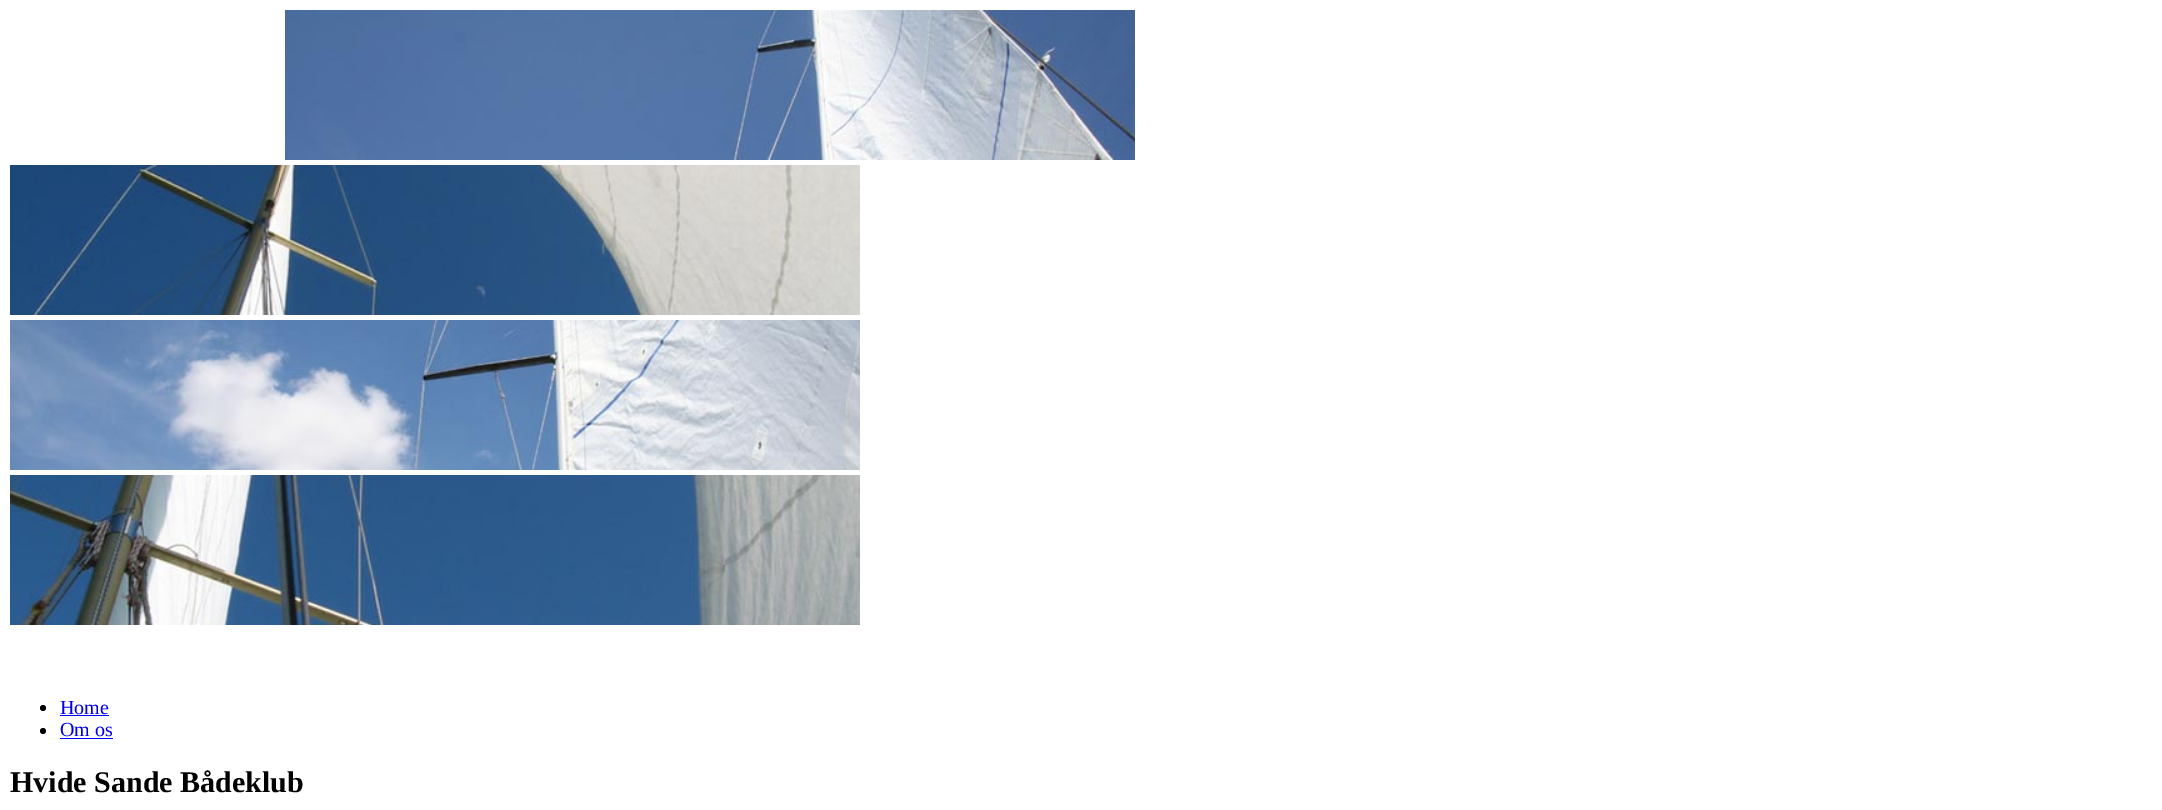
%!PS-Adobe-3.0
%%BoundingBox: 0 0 2162 810
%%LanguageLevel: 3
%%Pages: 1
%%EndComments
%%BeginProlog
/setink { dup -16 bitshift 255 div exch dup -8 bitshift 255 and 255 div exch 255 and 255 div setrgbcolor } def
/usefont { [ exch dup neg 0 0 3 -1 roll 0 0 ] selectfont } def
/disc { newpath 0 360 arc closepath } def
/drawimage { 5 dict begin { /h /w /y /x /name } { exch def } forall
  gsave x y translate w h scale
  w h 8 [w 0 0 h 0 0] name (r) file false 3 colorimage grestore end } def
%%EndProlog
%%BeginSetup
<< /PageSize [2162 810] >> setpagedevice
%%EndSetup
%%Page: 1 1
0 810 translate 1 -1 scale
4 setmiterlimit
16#FFFFFF setink
0 0 2162 810 rectfill
(img1.raw) 285 10 850 150 drawimage
(img2.raw) 10 165 850 150 drawimage
(img3.raw) 10 320 850 150 drawimage
(img4.raw) 10 475 850 150 drawimage
16#000000 setink
43 708 3 disc fill
/LiberationSerif-Regular 20 usefont
16#0000EE setink
60 714 moveto (Home) show
60 715 49 1 rectfill
16#000000 setink
43 731 3 disc fill
16#0000EE setink
60 736 moveto (Om os) show
60 738 53 1 rectfill
/LiberationSerif-Bold 30 usefont
16#000000 setink
10 792 moveto (Hvide Sande Bådeklub) show
showpage
%%EOF
